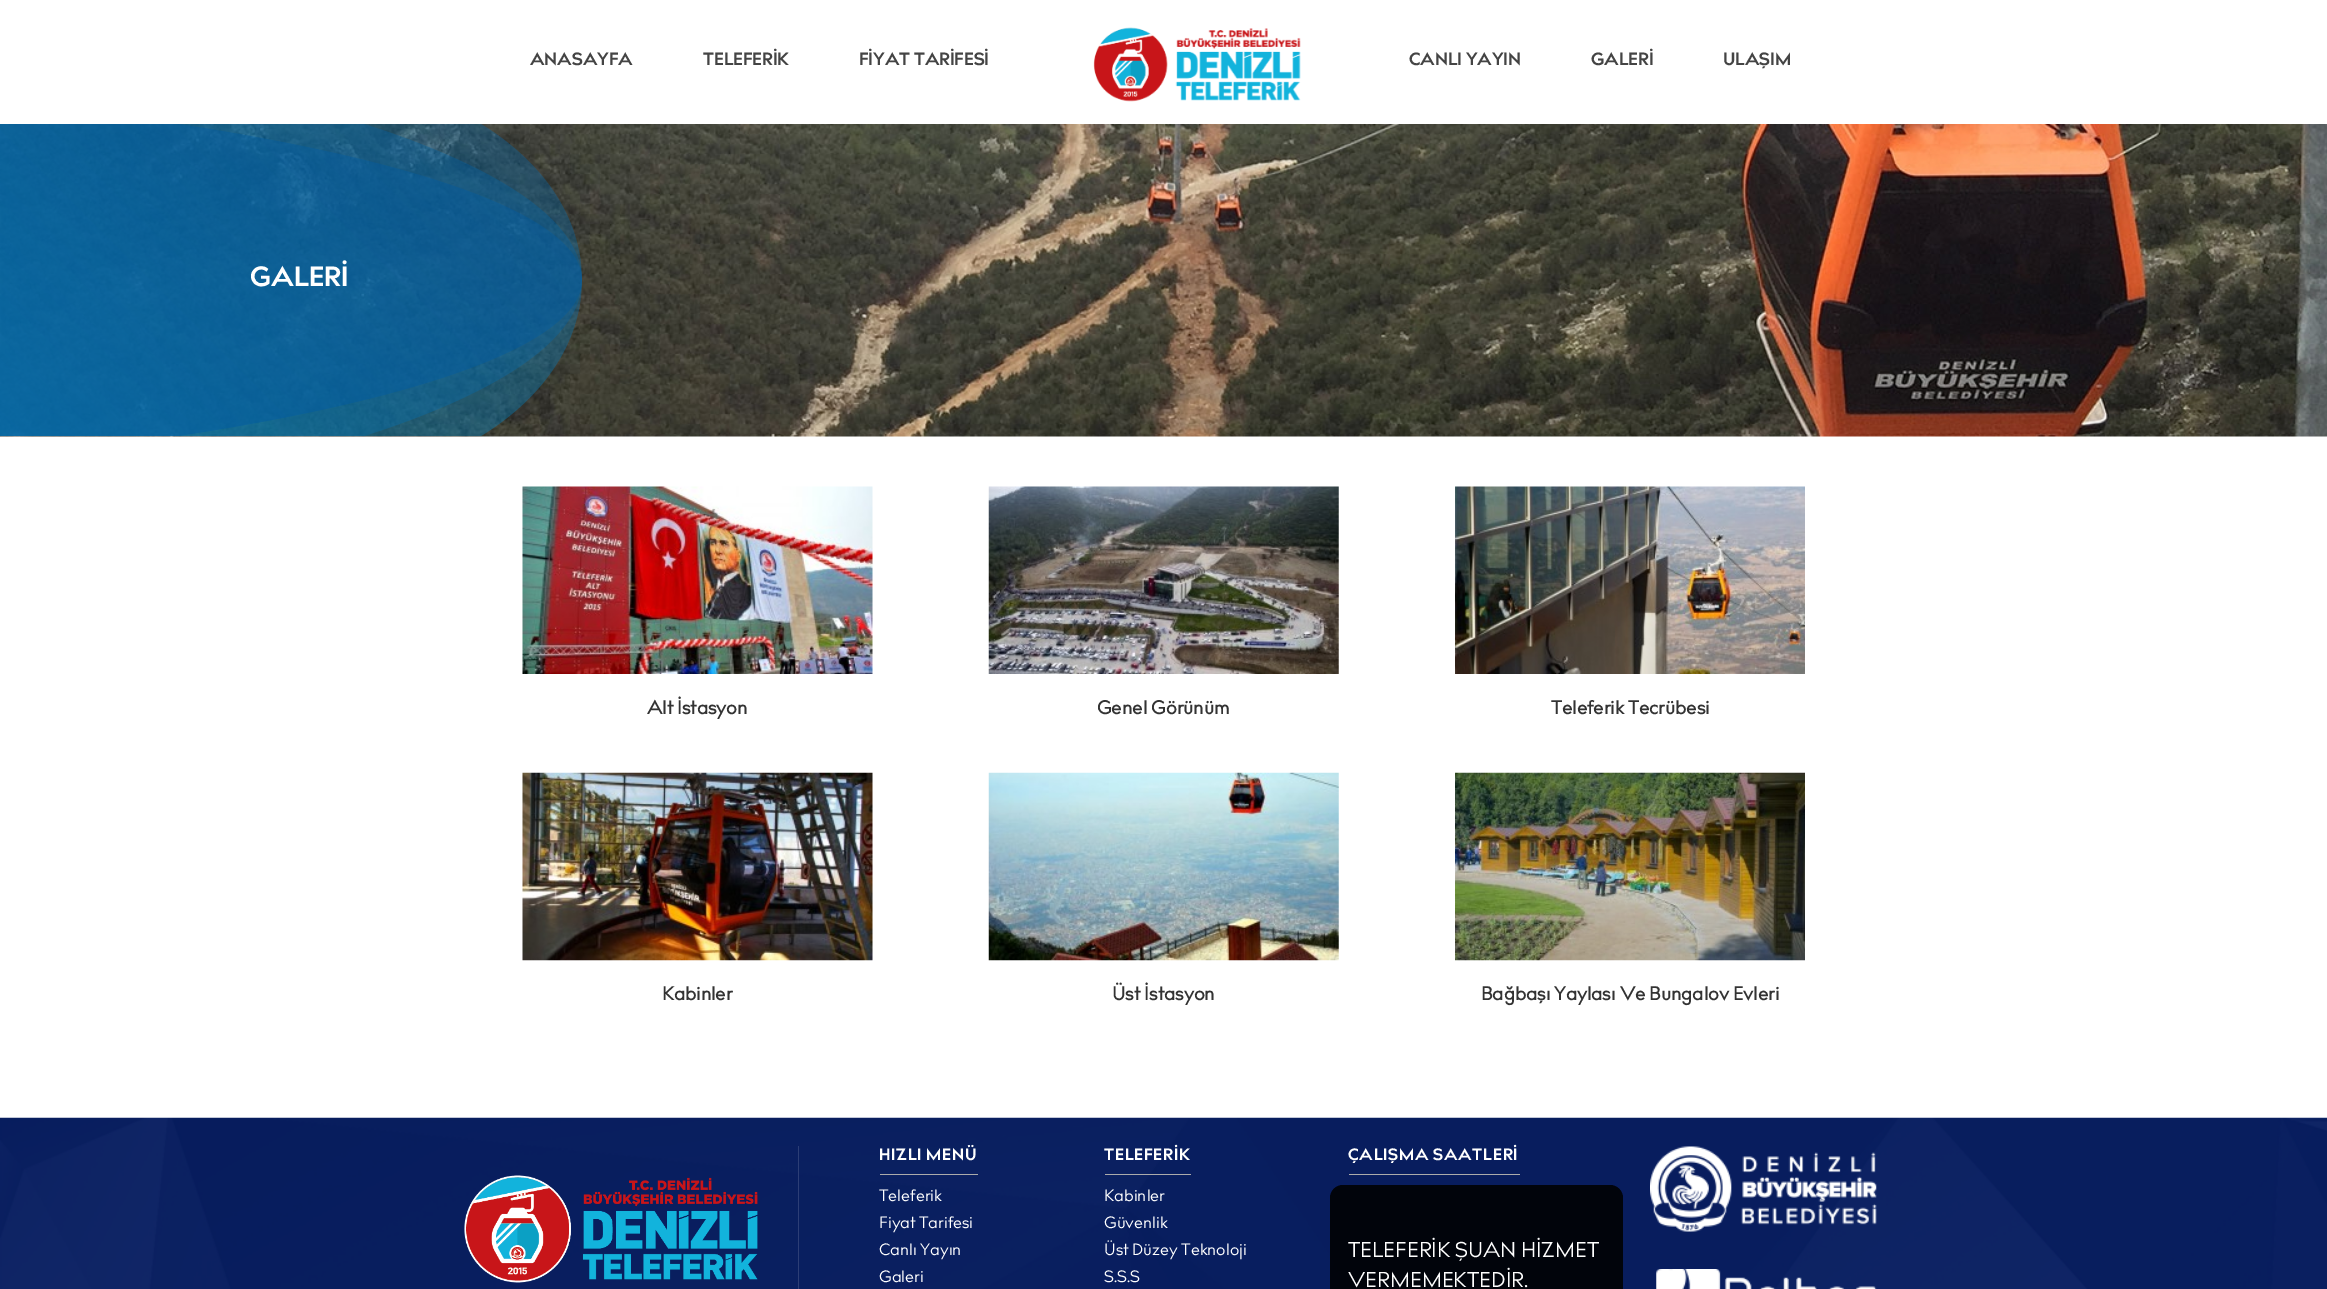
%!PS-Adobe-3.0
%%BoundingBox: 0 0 2327 1289
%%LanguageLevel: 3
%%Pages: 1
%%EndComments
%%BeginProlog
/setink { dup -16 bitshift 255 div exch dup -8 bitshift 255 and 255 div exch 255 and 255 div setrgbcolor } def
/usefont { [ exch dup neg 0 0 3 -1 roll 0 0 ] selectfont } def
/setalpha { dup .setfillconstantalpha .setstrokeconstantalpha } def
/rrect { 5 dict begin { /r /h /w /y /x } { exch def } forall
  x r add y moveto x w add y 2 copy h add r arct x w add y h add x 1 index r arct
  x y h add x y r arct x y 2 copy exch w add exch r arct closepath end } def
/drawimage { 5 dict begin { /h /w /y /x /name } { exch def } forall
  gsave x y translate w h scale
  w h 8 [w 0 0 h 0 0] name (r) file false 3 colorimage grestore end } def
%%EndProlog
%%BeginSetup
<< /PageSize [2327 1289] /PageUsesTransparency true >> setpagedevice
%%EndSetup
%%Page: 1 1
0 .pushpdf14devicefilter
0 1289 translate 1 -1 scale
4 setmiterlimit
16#FFFFFF setink
0 0 2327 1289 rectfill
/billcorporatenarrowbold-Bold 17.5 usefont
16#444444 setink
[
    [(ANASAYFA) 530 65]
    [(TELEFERİK) 703 65]
    [(FİYAT TARİFESİ) 859 65]
] { aload pop moveto show } forall
(img1.raw) 1093 27 208 75 drawimage
[
    [(CANLI YAYIN) 1409 65]
    [(GALERİ) 1591 65]
    [(ULAŞIM) 1723 65]
] { aload pop moveto show } forall
(img2.raw) 0 124 2327 313 drawimage
/billcorporatenarrowbold-Bold 27.5 usefont
16#FFFFFF setink
250 286 moveto (GALERİ) show
(img3.raw) 522 486 351 188 drawimage
/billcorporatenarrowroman-Bold 18.75 usefont
16#333333 setink
647 714 moveto (Alt İstasyon) show
(img4.raw) 988 486 351 188 drawimage
1097 714 moveto (Genel Görünüm) show
(img5.raw) 1455 486 350 188 drawimage
1551 714 moveto (Teleferik Tecrübesi) show
(img6.raw) 522 772 351 189 drawimage
662 1000 moveto (Kabinler) show
(img7.raw) 988 772 351 189 drawimage
1112 1000 moveto (Üst İstasyon) show
(img8.raw) 1455 772 350 189 drawimage
1481 1000 moveto (Bağbaşı Yaylası Ve Bungalov Evleri) show
(img9.raw) 0 1117 2327 172 drawimage
16#2C3E76 setink
798 1146 1 143 rectfill
(img10.raw) 464 1175 294 108 drawimage
16#ABABAB setink
880 1174 98 1 rectfill
/billcorporatenarrowbold-Bold 16.25 usefont
16#FFFFFF setink
879 1160 moveto 0.75 0 (HIZLI MENÜ) ashow
/billcorporatenarrowroman-Regular 16.25 usefont
[
    [(Teleferik) 879 1201]
    [(Fiyat Tarifesi) 879 1228]
    [(Canlı Yayın) 879 1255]
    [(Galeri) 879 1282]
] { aload pop moveto show } forall
16#ABABAB setink
1105 1174 86 1 rectfill
/billcorporatenarrowbold-Bold 16.25 usefont
16#FFFFFF setink
1104 1160 moveto 0.75 0 (TELEFERİK) ashow
/billcorporatenarrowroman-Regular 16.25 usefont
[
    [(Kabinler) 1104 1201]
    [(Güvenlik) 1104 1228]
    [(Üst Düzey Teknoloji) 1104 1255]
    [(S.S.S) 1104 1282]
] { aload pop moveto show } forall
16#ABABAB setink
1349 1174 171 1 rectfill
/billcorporatenarrowbold-Bold 16.25 usefont
16#FFFFFF setink
1348 1160 moveto 0.75 0 (ÇALIŞMA SAATLERİ) ashow
0.88 setalpha
16#000000 setink
1330 1185 293 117 13 rrect fill
/billcorporatenarrowroman-Regular 21.25 usefont
1 setalpha
16#FFFFFF setink
1348 1257 moveto (TELEFERİK ŞUAN HİZMET) show
1348 1287 moveto (VERMEMEKTEDİR.) show
(img11.raw) 1650 1146 227 86 drawimage
(img12.raw) 1656 1269 221 20 drawimage
.poppdf14devicefilter showpage
%%EOF
